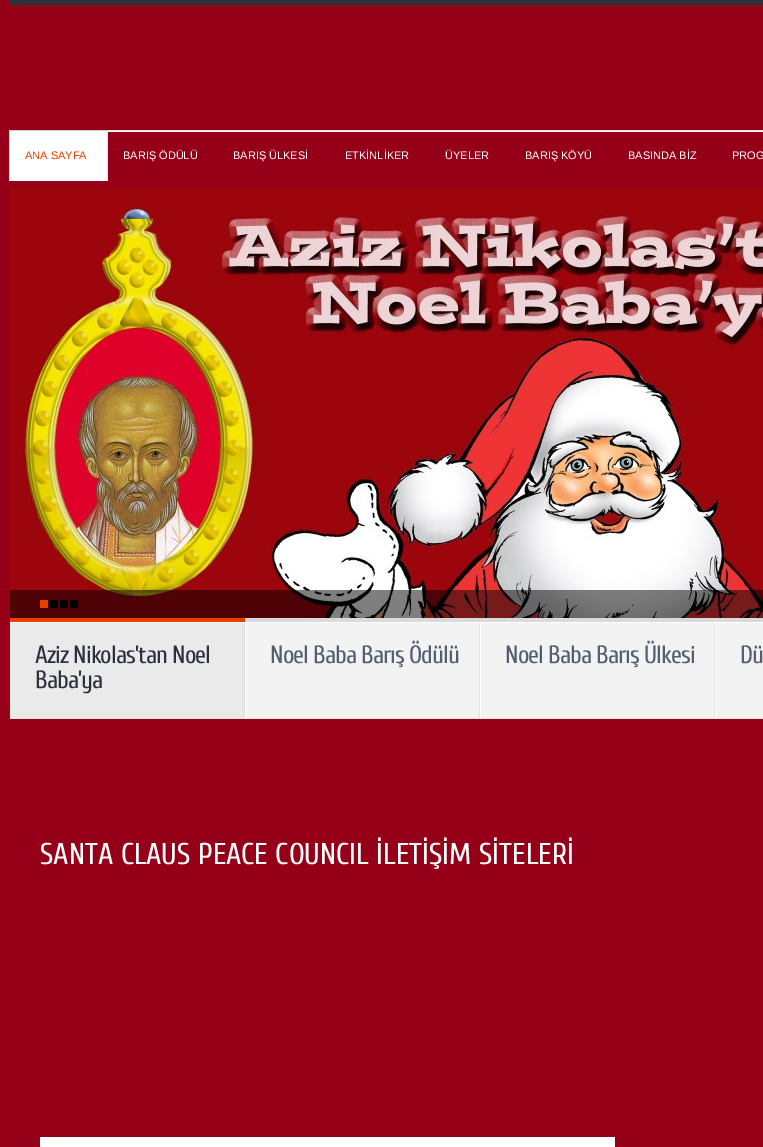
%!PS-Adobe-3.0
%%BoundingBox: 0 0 763 1147
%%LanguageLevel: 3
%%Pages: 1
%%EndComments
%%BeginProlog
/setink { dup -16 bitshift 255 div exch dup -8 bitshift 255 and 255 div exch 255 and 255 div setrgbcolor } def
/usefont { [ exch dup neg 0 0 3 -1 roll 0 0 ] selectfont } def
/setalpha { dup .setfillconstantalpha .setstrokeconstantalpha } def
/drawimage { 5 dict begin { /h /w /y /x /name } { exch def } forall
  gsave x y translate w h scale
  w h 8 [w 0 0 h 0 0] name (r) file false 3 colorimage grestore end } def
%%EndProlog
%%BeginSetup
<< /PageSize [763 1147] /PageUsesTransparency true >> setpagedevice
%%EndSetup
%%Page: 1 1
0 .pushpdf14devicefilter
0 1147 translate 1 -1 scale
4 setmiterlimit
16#950018 setink
0 0 763 1147 rectfill
[
    [10 0 753 5 16#2C323C]
    [108 130 655 1 16#E5E5E5]
    [108 131 655 1 16#FFFFFF]
    [10 131 97 50 16#FFFFFF]
    [9 130 99 1 16#CECECE]
    [107 130 1 51 16#E5E5E5]
    [9 130 1 51 16#E5E5E5]
] { aload pop setink rectfill } forall
/LiberationSans-Regular 11 usefont
16#E64100 setink
25 159 moveto (ANA SAYFA) show
16#FFFFFF setink
[
    [(BARIŞ ÖDÜLÜ) 123 159]
    [(BARIŞ ÜLKESİ) 233 159]
    [(ETKİNLİKER) 345 159]
    [(ÜYELER) 445 159]
    [(BARIŞ KÖYÜ) 525 159]
    [(BASINDA BİZ) 628 159]
    [(PROG) 732 159]
] { aload pop moveto show } forall
(img1.raw) 10 188 753 430 drawimage
0.5 setalpha
[
    [10 590 753 28 16#000000]
] { aload pop setink rectfill } forall
1 setalpha
[
    [40 600 8 8 16#E64100]
    [50 600 8 8 16#000000]
    [60 600 8 8 16#000000]
    [70 600 8 8 16#000000]
] { aload pop setink rectfill } forall
(img2.raw) 10 618 235 101 drawimage
/Cuprum-Regular 25 usefont
16#2C323C setink
35 663 moveto -1 0 (Aziz Nikolas’tan Noel) ashow
35 688 moveto -1 0 (Baba’ya) ashow
(img3.raw) 245 618 235 101 drawimage
16#535E70 setink
270 663 moveto -1 0 (Noel Baba Barış Ödülü) ashow
(img3.raw) 480 618 235 101 drawimage
505 663 moveto -1 0 (Noel Baba Barış Ülkesi) ashow
(img4.raw) 715 618 48 101 drawimage
740 663 moveto -1 0 (Dü) ashow
/Cuprum-Regular 30 usefont
16#FFFFFF setink
40 864 moveto (SANTA CLAUS PEACE COUNCIL İLETİŞİM SİTELERİ) show
40 1137 575 10 rectfill
.poppdf14devicefilter showpage
%%EOF
